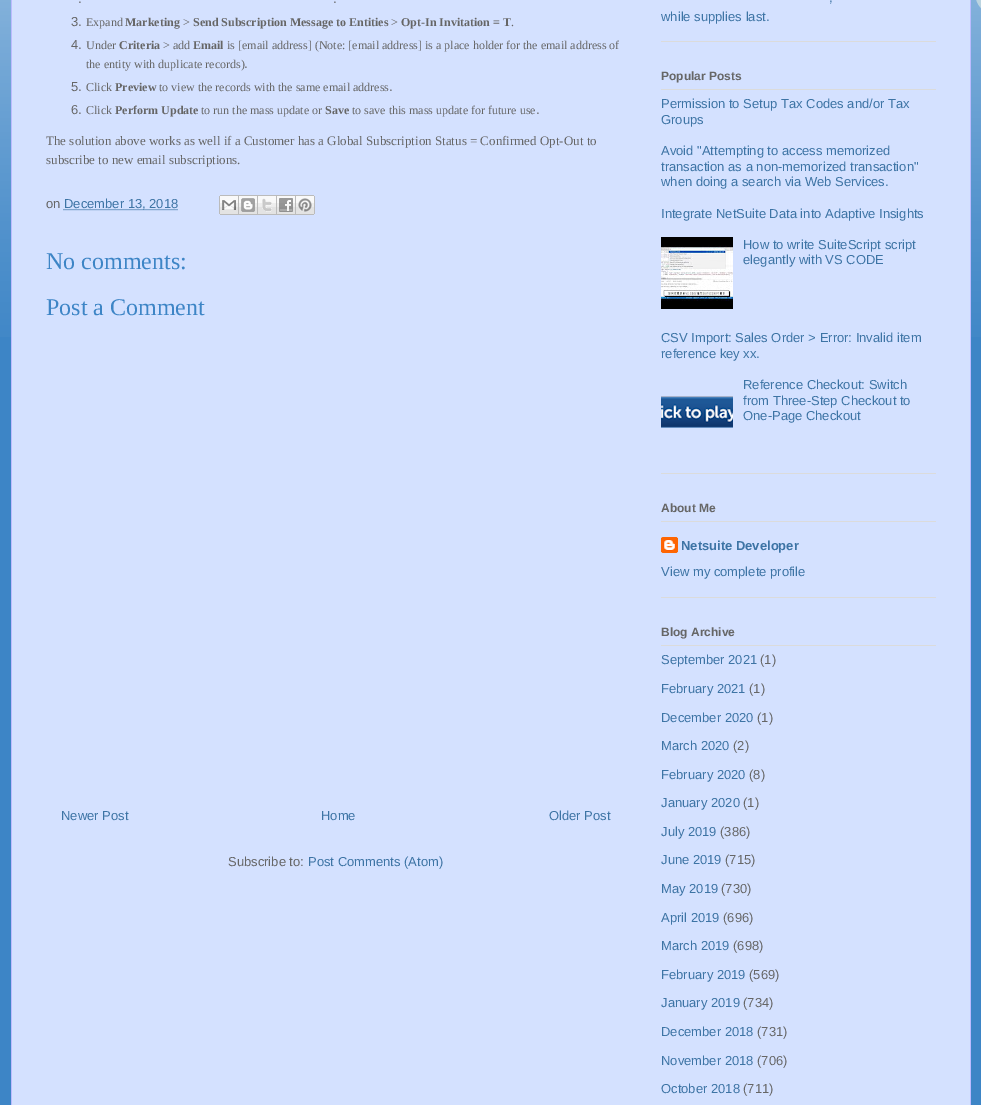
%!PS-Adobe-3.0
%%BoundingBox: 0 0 981 1105
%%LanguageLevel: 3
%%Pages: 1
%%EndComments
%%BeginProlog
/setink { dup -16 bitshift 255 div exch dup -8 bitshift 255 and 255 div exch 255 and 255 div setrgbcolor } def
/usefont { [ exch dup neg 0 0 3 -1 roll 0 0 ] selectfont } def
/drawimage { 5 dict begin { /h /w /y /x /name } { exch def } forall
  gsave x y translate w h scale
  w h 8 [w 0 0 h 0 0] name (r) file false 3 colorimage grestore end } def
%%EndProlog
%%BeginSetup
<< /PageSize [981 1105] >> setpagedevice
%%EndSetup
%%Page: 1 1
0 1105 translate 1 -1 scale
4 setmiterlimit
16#3D85C6 setink
0 0 981 1105 rectfill
(img1.raw) 0 0 981 337 drawimage
[
    [12 0 958 1105 16#D4E1FF]
    [970 0 1 1105 16#BBBBFF]
    [11 0 1 1105 16#BBBBFF]
] { aload pop setink rectfill } forall
/LiberationSans-Regular 13 usefont
16#666666 setink
[
    [(.) 78 3]
    [(.) 333 3]
    [(3.) 71 26]
] { aload pop moveto show } forall
/LiberationSerif-Regular 12 usefont
86 26 moveto (Expand) show
/LiberationSerif-Bold 12 usefont
125 26 moveto (Marketing) show
/LiberationSerif-Regular 12 usefont
183 26 moveto (>) show
/LiberationSerif-Bold 12 usefont
193 26 moveto (Send Subscription Message to Entities) show
/LiberationSerif-Regular 12 usefont
391 26 moveto (>) show
/LiberationSerif-Bold 12 usefont
401 26 moveto (Opt-In Invitation = T) show
/LiberationSerif-Regular 12 usefont
511 26 moveto (.) show
/LiberationSans-Regular 13 usefont
71 49 moveto (4.) show
/LiberationSerif-Regular 12 usefont
86 49 moveto (Under) show
/LiberationSerif-Bold 12 usefont
119 49 moveto (Criteria) show
/LiberationSerif-Regular 12 usefont
163 49 moveto (> add) show
/LiberationSerif-Bold 12 usefont
193 49 moveto (Email) show
/LiberationSerif-Regular 12 usefont
227 49 moveto (is [email address] \(Note: [email address] is a place holder for the email address of) show
86 68 moveto (the entity with duplicate records\)) show
/LiberationSans-Regular 13 usefont
244 68 moveto (.) show
71 91 moveto (5.) show
/LiberationSerif-Regular 12 usefont
86 91 moveto (Click) show
/LiberationSerif-Bold 12 usefont
115 91 moveto (Preview) show
/LiberationSerif-Regular 12 usefont
159 91 moveto (to view the records with the same email address) show
/LiberationSans-Regular 13 usefont
389 91 moveto (.) show
71 114 moveto (6.) show
/LiberationSerif-Regular 12 usefont
86 114 moveto (Click) show
/LiberationSerif-Bold 12 usefont
115 114 moveto (Perform Update) show
/LiberationSerif-Regular 12 usefont
201 114 moveto (to run the mass update or) show
/LiberationSerif-Bold 12 usefont
325 114 moveto (Save) show
/LiberationSerif-Regular 12 usefont
352 114 moveto (to save this mass update for future use) show
/LiberationSans-Regular 13 usefont
536 114 moveto (.) show
/LiberationSerif-Regular 13 usefont
46 145 moveto (The solution above works as well if a Customer has a Global Subscription Status = Confirmed Opt-Out to) show
46 164 moveto (subscribe to new email subscriptions.) show
/LiberationSans-Regular 13 usefont
46 208 moveto (on) show
16#3D74A5 setink
[1 1] 0 setdash
63.5 209.5 moveto 178 209.5 lineto stroke
64 208 moveto (December 13, 2018) show
(img2.raw) 219 195 20 20 drawimage
(img3.raw) 239 195 19 20 drawimage
(img4.raw) 258 195 19 20 drawimage
(img5.raw) 277 195 19 20 drawimage
(img6.raw) 296 195 19 20 drawimage
/LiberationSerif-Regular 24 usefont
16#3D85C6 setink
46 269 moveto (No comments:) show
46 315 moveto (Post a Comment) show
/LiberationSans-Regular 13 usefont
16#3D74A5 setink
[
    [(Newer Post) 61 820]
    [(Home) 321 820]
    [(Older Post) 549 820]
] { aload pop moveto show } forall
16#666666 setink
228 866 moveto (Subscribe to:) show
16#3D74A5 setink
308 866 moveto (Post Comments \(Atom\)) show
16#DBDBDB setink
661 41 275 1 rectfill
16#3D74A5 setink
829 2 moveto (,) show
661 21 moveto (while supplies last.) show
16#DBDBDB setink
661 473 275 1 rectfill
661 89 275 1 rectfill
/LiberationSans-Bold 12 usefont
16#666666 setink
661 80 moveto (Popular Posts) show
/LiberationSans-Regular 13 usefont
16#3D74A5 setink
[
    [(Permission to Setup Tax Codes and/or Tax) 661 108]
    [(Groups) 661 124]
    [(Avoid "Attempting to access memorized) 661 155]
    [(transaction as a non-memorized transaction") 661 171]
    [(when doing a search via Web Services.) 661 186]
    [(Integrate NetSuite Data into Adaptive Insights) 661 218]
] { aload pop moveto show } forall
(img7.raw) 661 237 72 72 drawimage
[
    [(How to write SuiteScript script) 743 249]
    [(elegantly with VS CODE) 743 264]
    [(CSV Import: Sales Order > Error: Invalid item) 661 342]
    [(reference key xx.) 661 358]
] { aload pop moveto show } forall
(img8.raw) 661 396 72 32 drawimage
[
    [(Reference Checkout: Switch) 743 389]
    [(from Three-Step Checkout to) 743 405]
    [(One-Page Checkout) 743 420]
] { aload pop moveto show } forall
16#DBDBDB setink
661 597 275 1 rectfill
661 521 275 1 rectfill
/LiberationSans-Bold 12 usefont
16#666666 setink
661 512 moveto (About Me) show
(img9.raw) 661 537 17 16 drawimage
/LiberationSans-Bold 13 usefont
16#3D74A5 setink
681 550 moveto (Netsuite Developer) show
/LiberationSans-Regular 13 usefont
661 576 moveto (View my complete profile) show
16#DBDBDB setink
661 645 275 1 rectfill
/LiberationSans-Bold 12 usefont
16#666666 setink
661 636 moveto (Blog Archive) show
/LiberationSans-Regular 13 usefont
16#3D74A5 setink
661 664 moveto (September 2021) show
16#666666 setink
760 664 moveto (\(1\)) show
16#3D74A5 setink
661 693 moveto (February 2021) show
16#666666 setink
749 693 moveto (\(1\)) show
16#3D74A5 setink
661 722 moveto (December 2020) show
16#666666 setink
757 722 moveto (\(1\)) show
16#3D74A5 setink
661 750 moveto (March 2020) show
16#666666 setink
733 750 moveto (\(2\)) show
16#3D74A5 setink
661 779 moveto (February 2020) show
16#666666 setink
749 779 moveto (\(8\)) show
16#3D74A5 setink
661 807 moveto (January 2020) show
16#666666 setink
743 807 moveto (\(1\)) show
16#3D74A5 setink
661 836 moveto (July 2019) show
16#666666 setink
720 836 moveto (\(386\)) show
16#3D74A5 setink
661 864 moveto (June 2019) show
16#666666 setink
725 864 moveto (\(715\)) show
16#3D74A5 setink
661 893 moveto (May 2019) show
16#666666 setink
721 893 moveto (\(730\)) show
16#3D74A5 setink
661 922 moveto (April 2019) show
16#666666 setink
723 922 moveto (\(696\)) show
16#3D74A5 setink
661 950 moveto (March 2019) show
16#666666 setink
733 950 moveto (\(698\)) show
16#3D74A5 setink
661 979 moveto (February 2019) show
16#666666 setink
749 979 moveto (\(569\)) show
16#3D74A5 setink
661 1007 moveto (January 2019) show
16#666666 setink
743 1007 moveto (\(734\)) show
16#3D74A5 setink
661 1036 moveto (December 2018) show
16#666666 setink
757 1036 moveto (\(731\)) show
16#3D74A5 setink
661 1065 moveto (November 2018) show
16#666666 setink
757 1065 moveto (\(706\)) show
16#3D74A5 setink
661 1093 moveto (October 2018) show
16#666666 setink
743 1093 moveto (\(711\)) show
showpage
%%EOF
